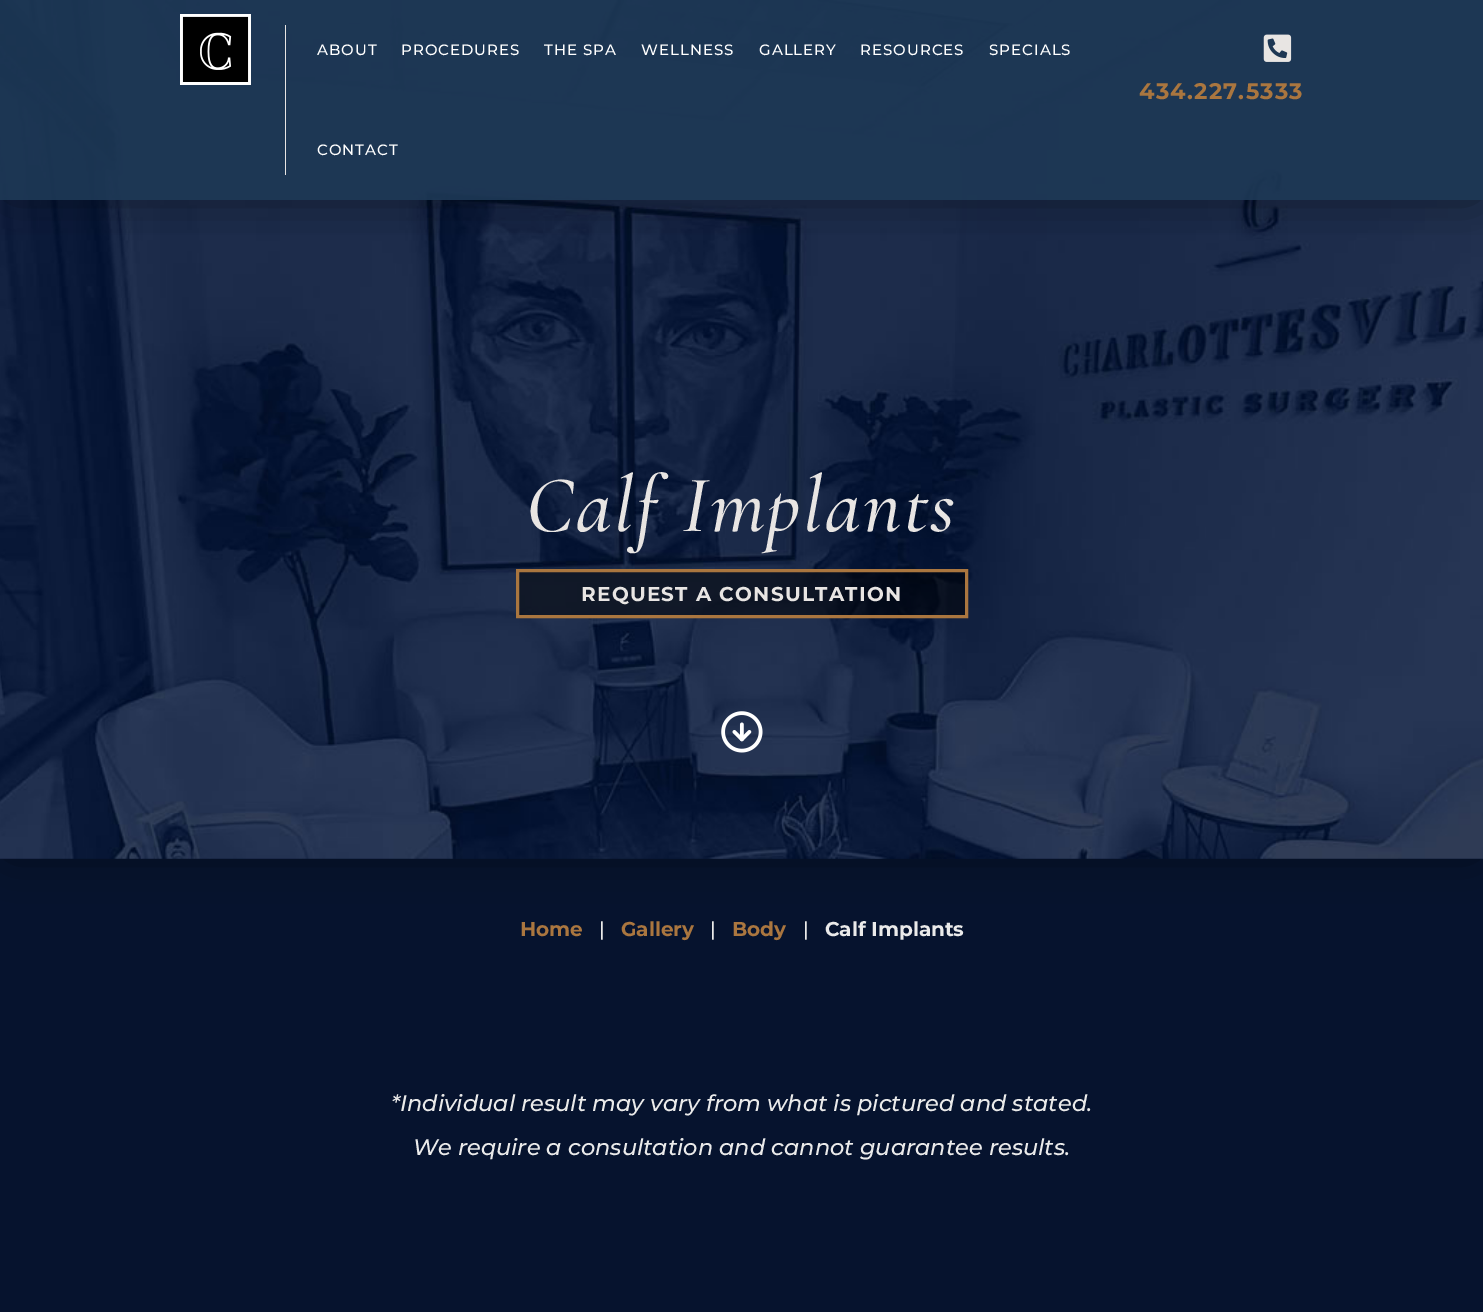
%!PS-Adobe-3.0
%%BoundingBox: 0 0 1483 1312
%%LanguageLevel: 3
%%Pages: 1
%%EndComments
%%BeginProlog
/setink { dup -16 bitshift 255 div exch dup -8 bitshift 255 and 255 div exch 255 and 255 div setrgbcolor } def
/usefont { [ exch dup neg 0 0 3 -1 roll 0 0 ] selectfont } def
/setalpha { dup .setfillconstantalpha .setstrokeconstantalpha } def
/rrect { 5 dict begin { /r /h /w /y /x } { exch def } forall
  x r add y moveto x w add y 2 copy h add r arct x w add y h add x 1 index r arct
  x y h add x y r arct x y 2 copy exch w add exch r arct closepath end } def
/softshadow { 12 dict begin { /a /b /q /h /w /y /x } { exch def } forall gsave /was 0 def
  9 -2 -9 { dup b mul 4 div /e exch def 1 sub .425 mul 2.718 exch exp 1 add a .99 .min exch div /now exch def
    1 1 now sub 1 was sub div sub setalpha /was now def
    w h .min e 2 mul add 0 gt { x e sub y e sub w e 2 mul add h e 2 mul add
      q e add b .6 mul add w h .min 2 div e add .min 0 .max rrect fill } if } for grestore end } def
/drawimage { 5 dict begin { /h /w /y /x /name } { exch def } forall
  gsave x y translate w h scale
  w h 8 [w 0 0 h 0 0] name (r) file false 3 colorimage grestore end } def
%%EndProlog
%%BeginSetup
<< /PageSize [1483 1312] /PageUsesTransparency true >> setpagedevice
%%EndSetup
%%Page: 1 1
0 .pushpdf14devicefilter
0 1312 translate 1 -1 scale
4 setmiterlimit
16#06132E setink
0 0 1483 1312 rectfill
16#000000 setink
10 10 1464 839 0 24.5 0.59 softshadow
(img3.raw) 0 0 1483 859 drawimage
gsave
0 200 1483 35 rectclip
10 10 1464 180 0 24.5 0.59 softshadow
grestore
0.9 setalpha
16#1D3855 setink
0 0 1483 200 rectfill
1 setalpha
(img1.raw) 180 14 71 71 drawimage
16#E8E5E3 setink
285 25 1 150 rectfill
/Montserrat-Medium 15 usefont
16#FFFFFF setink
317 55 moveto 1 0 (ABOUT) ashow
401 55 moveto 1 0 (PROCEDURES) ashow
544 55 moveto 1 0 (THE SPA) ashow
641 55 moveto 1 0 (WELLNESS) ashow
759 55 moveto 1 0 (GALLERY) ashow
860 55 moveto 1 0 (RESOURCES) ashow
989 55 moveto 1 0 (SPECIALS) ashow
317 155 moveto 1 0 (CONTACT) ashow
(img2.raw) 1263 34 29 28 drawimage
/Montserrat-Bold 22.5 usefont
16#AA763F setink
1139 99 moveto 1.25 0 (434.227.5333) ashow
/CormorantInfant-MediumItalic 81.25 usefont
16#E8E5E3 setink
526 531 moveto 2.5 0 (Calf Implants) ashow
0.5 setalpha
16#000000 setink
517.5 570.5 moveto 966.5 570.5 lineto 966.5 616.5 lineto 517.5 616.5 lineto closepath fill
1 setalpha
16#AA763F setink
3 setlinewidth
517.5 570.5 moveto 966.5 570.5 lineto 966.5 616.5 lineto 517.5 616.5 lineto closepath stroke
/Montserrat-Bold 20 usefont
16#E8E5E3 setink
581 601 moveto 1.25 0 (REQUEST A CONSULTATION) ashow
(img4.raw) 721 711 42 42 drawimage
16#AA763F setink
520 936 moveto (Home) show
/Montserrat-Medium 20 usefont
16#EAEAEA setink
599 936 moveto (|) show
/Montserrat-Bold 20 usefont
16#AA763F setink
621 936 moveto (Gallery) show
/Montserrat-Medium 20 usefont
16#EAEAEA setink
710 936 moveto (|) show
/Montserrat-Bold 20 usefont
16#AA763F setink
732 936 moveto (Body) show
/Montserrat-Medium 20 usefont
16#EAEAEA setink
803 936 moveto (|) show
/Montserrat-Bold 20 usefont
825 936 moveto (Calf Implants) show
/Montserrat-ThinItalic 22.5 usefont
391 1111 moveto (*Individual result may vary from what is pictured and stated.) show
413 1155 moveto (We require a consultation and cannot guarantee results.) show
.poppdf14devicefilter showpage
%%EOF
